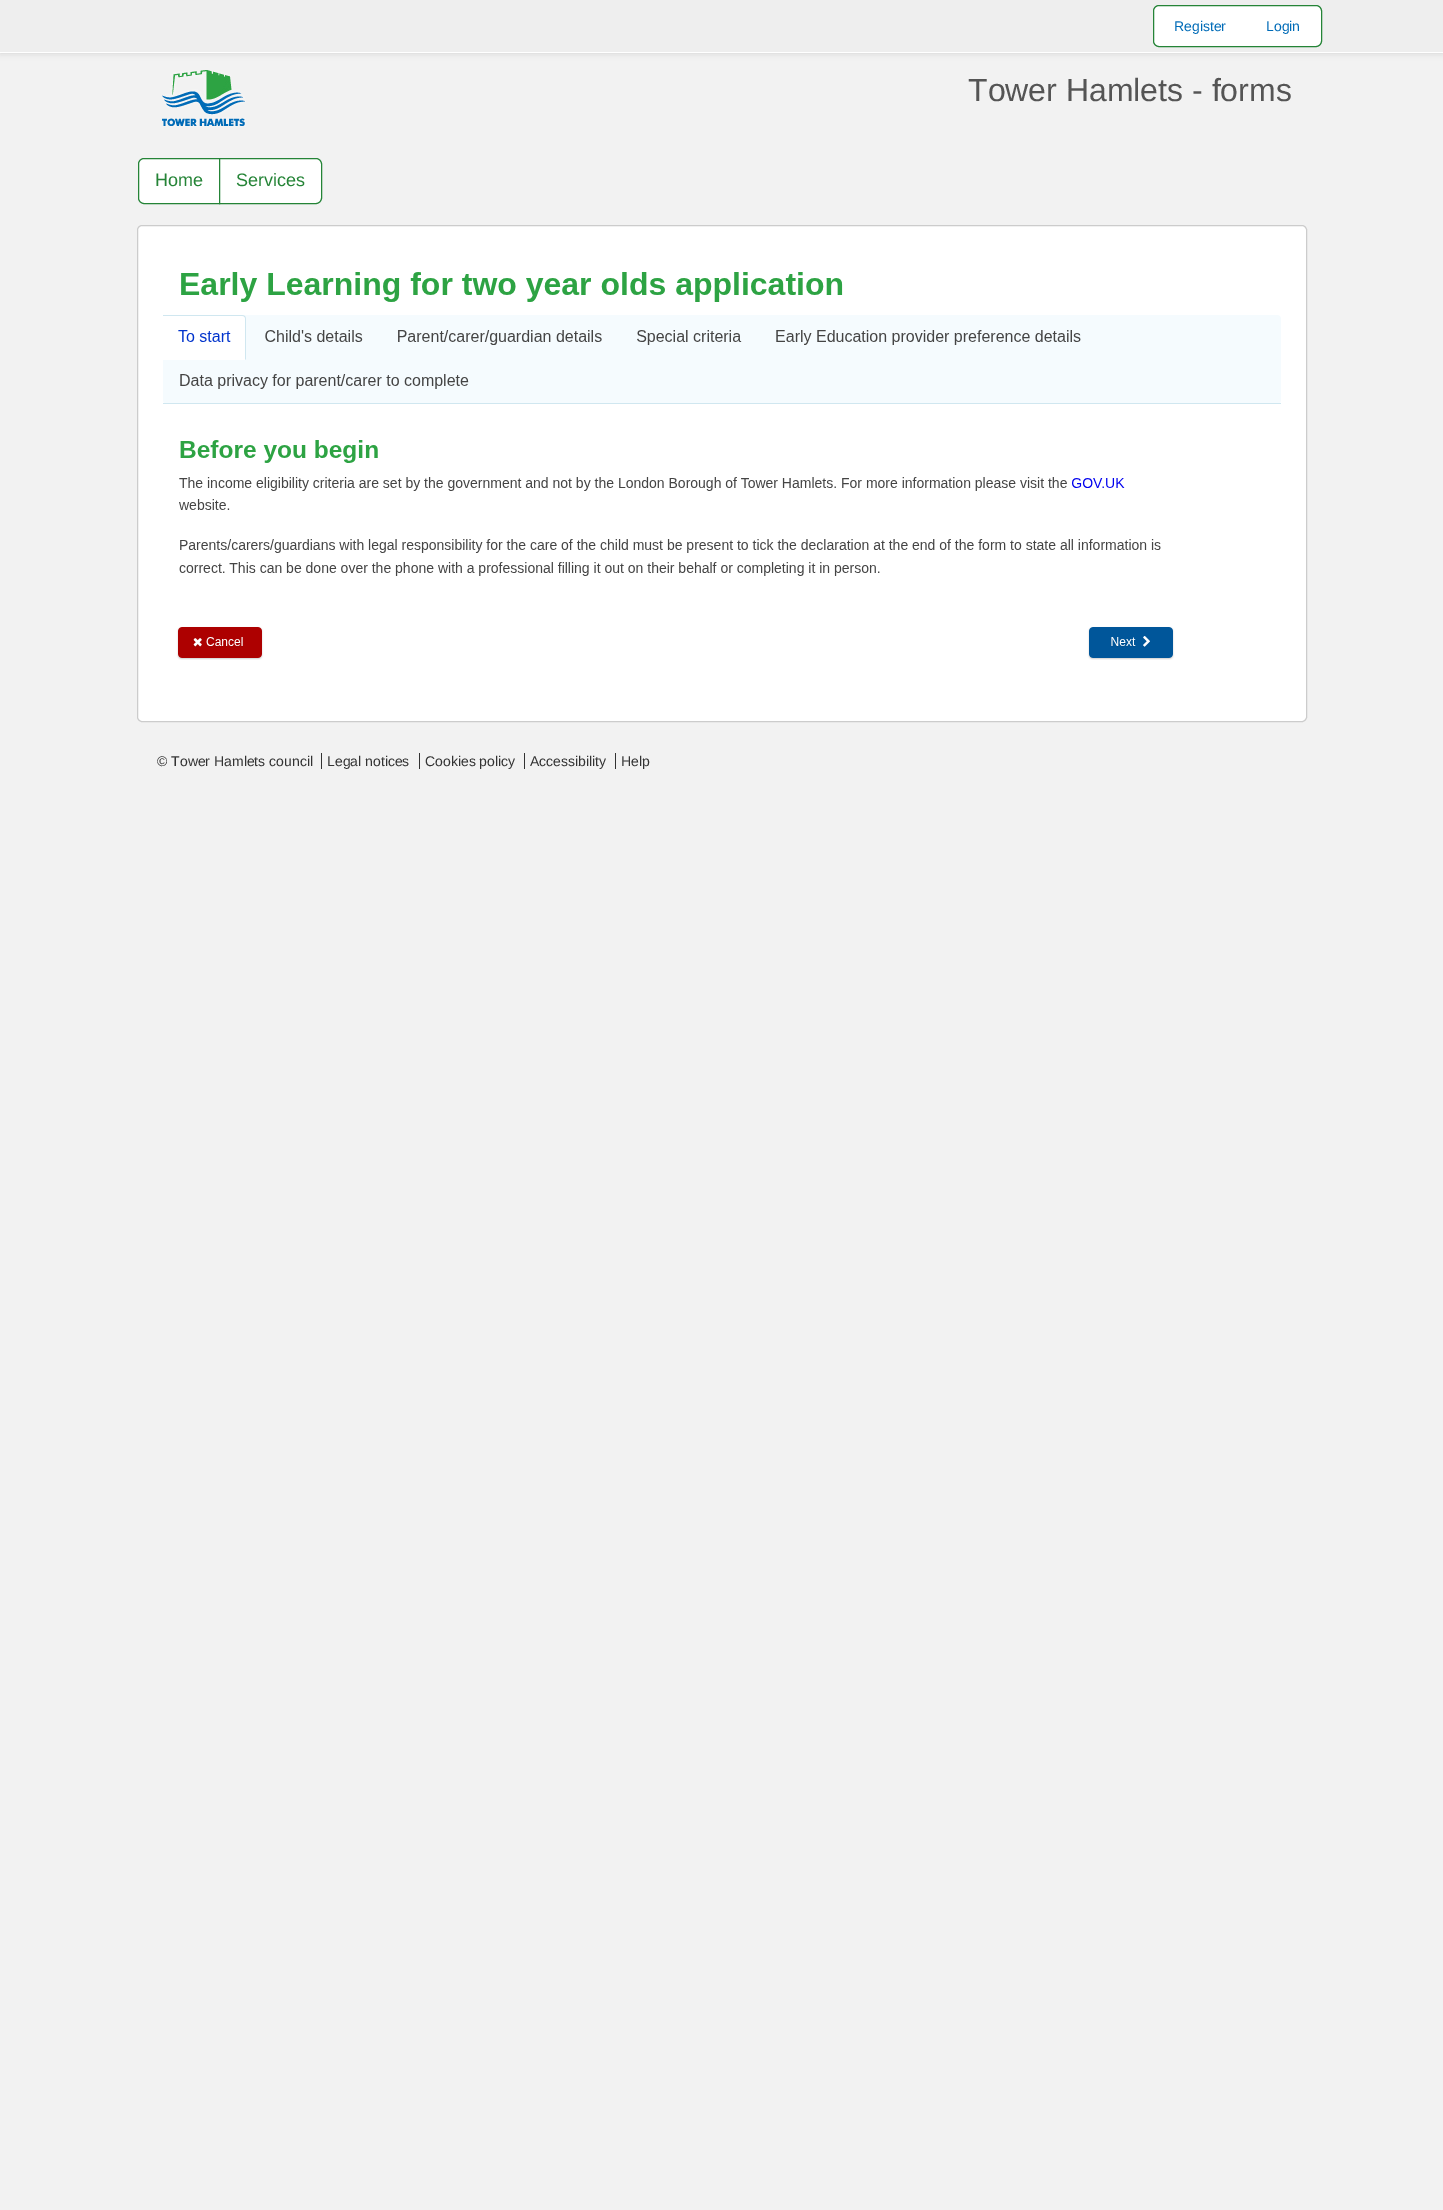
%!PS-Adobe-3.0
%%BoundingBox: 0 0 1443 2210
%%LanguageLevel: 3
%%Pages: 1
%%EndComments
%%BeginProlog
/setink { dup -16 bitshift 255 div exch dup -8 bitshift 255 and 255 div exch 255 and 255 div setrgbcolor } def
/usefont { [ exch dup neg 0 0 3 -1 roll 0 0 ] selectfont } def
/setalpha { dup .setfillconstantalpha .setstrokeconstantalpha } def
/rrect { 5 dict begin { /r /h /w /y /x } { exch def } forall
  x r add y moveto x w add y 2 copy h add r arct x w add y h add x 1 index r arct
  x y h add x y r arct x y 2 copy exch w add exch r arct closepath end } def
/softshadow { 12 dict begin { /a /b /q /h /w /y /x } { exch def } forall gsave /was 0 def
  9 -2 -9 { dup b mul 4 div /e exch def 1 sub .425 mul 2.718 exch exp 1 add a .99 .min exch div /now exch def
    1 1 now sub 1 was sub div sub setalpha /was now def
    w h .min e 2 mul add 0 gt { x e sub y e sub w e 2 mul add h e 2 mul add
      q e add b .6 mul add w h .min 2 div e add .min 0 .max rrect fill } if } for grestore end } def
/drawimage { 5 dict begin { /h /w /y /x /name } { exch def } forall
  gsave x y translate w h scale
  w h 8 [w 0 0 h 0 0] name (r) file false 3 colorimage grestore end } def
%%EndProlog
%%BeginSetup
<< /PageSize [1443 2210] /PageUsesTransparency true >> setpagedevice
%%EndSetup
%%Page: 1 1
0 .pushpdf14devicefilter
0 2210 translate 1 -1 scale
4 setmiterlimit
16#F2F2F2 setink
0 0 1443 2210 rectfill
16#D1D1D1 setink
0 0 1443 53 0 3.5 1 softshadow
16#EEEEEE setink
0 0 1443 52 rectfill
16#FFFFFF setink
0 52 1443 1 rectfill
1153.5 5.5 168 41 5.5 rrect gsave fill grestore
16#258437 setink
stroke
/LiberationSans-Regular 14 usefont
16#006BB7 setink
1174 31 moveto (Register) show
1266 31 moveto (Login) show
(img1.raw) 162 70 84 57 drawimage
/LiberationSans-Regular 32 usefont
16#555555 setink
968 101 moveto (Tower Hamlets - forms) show
16#FFFFFF setink
144 158.5 moveto 219.5 158.5 lineto 219.5 203.5 lineto 144 203.5 lineto 141 203.5 138.5 201 138.5 198 curveto 138.5 164 lineto 138.5 161 141 158.5 144 158.5 curveto closepath gsave fill grestore
16#258437 setink
stroke
/LiberationSans-Regular 18 usefont
155 186 moveto (Home) show
16#FFFFFF setink
219.5 158.5 moveto 316 158.5 lineto 319 158.5 321.5 161 321.5 164 curveto 321.5 198 lineto 321.5 201 319 203.5 316 203.5 curveto 219.5 203.5 lineto closepath gsave fill grestore
16#258437 setink
stroke
236 186 moveto (Services) show
16#FFFFFF setink
137.5 225.5 1169 496 4.5 rrect gsave fill grestore
16#CCCCCC setink
stroke
(img2.raw) 163 272 1118 388 drawimage
/LiberationSans-Regular 14 usefont
16#333333 setink
157 766 moveto (© Tower Hamlets council) show
327 766 moveto (Legal notices) show
321 753 1 16 rectfill
425 766 moveto (Cookies policy) show
419 753 1 16 rectfill
530 766 moveto (Accessibility) show
524 753 1 16 rectfill
621 766 moveto (Help) show
615 753 1 16 rectfill
.poppdf14devicefilter showpage
%%EOF
